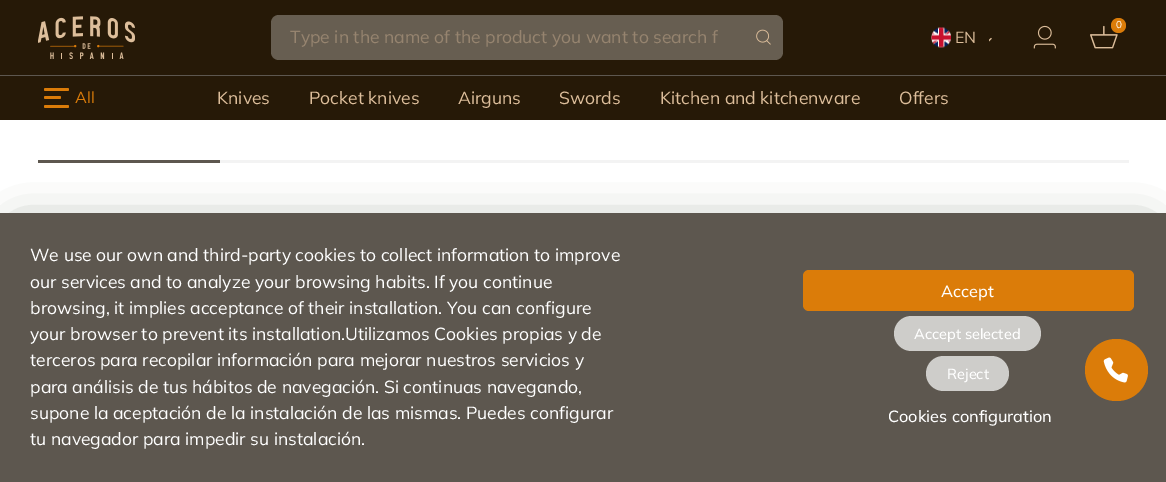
%!PS-Adobe-3.0
%%BoundingBox: 0 0 1166 482
%%LanguageLevel: 3
%%Pages: 1
%%EndComments
%%BeginProlog
/setink { dup -16 bitshift 255 div exch dup -8 bitshift 255 and 255 div exch 255 and 255 div setrgbcolor } def
/usefont { [ exch dup neg 0 0 3 -1 roll 0 0 ] selectfont } def
/setalpha { dup .setfillconstantalpha .setstrokeconstantalpha } def
/disc { newpath 0 360 arc closepath } def
/rrect { 5 dict begin { /r /h /w /y /x } { exch def } forall
  x r add y moveto x w add y 2 copy h add r arct x w add y h add x 1 index r arct
  x y h add x y r arct x y 2 copy exch w add exch r arct closepath end } def
/softshadow { 12 dict begin { /a /b /q /h /w /y /x } { exch def } forall gsave /was 0 def
  9 -2 -9 { dup b mul 4 div /e exch def 1 sub .425 mul 2.718 exch exp 1 add a .99 .min exch div /now exch def
    1 1 now sub 1 was sub div sub setalpha /was now def
    w h .min e 2 mul add 0 gt { x e sub y e sub w e 2 mul add h e 2 mul add
      q e add b .6 mul add w h .min 2 div e add .min 0 .max rrect fill } if } for grestore end } def
/drawimage { 5 dict begin { /h /w /y /x /name } { exch def } forall
  gsave x y translate w h scale
  w h 8 [w 0 0 h 0 0] name (r) file false 3 colorimage grestore end } def
%%EndProlog
%%BeginSetup
<< /PageSize [1166 482] /PageUsesTransparency true >> setpagedevice
%%EndSetup
%%Page: 1 1
0 .pushpdf14devicefilter
0 482 translate 1 -1 scale
4 setmiterlimit
16#FFFFFF setink
0 0 1166 482 rectfill
16#261907 setink
0 0 1166 75 rectfill
(img1.raw) 38 16 97 43 drawimage
(img2.raw) 1033 25 23 24 drawimage
(img3.raw) 1090 25 28 24 drawimage
16#DB7C09 setink
1118.5 25.5 7.5 disc fill
/Mulish-Regular 10 usefont
16#FFFFFF setink
1116 28 moveto (0) show
16#675E51 setink
279 15 moveto 738 15 lineto 738 60 lineto 279 60 lineto 274.5 60 271 56.5 271 52 curveto 271 23 lineto 271 18.5 274.5 15 279 15 curveto closepath fill
/Mulish-Regular 17.5 usefont
16#96846F setink
290 43 moveto (Type in the name of the product you want to search f) show
16#675E51 setink
738 15 moveto 775 15 lineto 779.5 15 783 18.5 783 23 curveto 783 52 lineto 783 56.5 779.5 60 775 60 curveto 738 60 lineto closepath fill
(img4.raw) 756 29 15 16 drawimage
(img5.raw) 931 27 20 21 drawimage
/Mulish-Regular 16 usefont
16#DDBE9B setink
955 43 moveto (EN) show
(img6.raw) 989 37 3 5 drawimage
16#261907 setink
0 76 1166 44 rectfill
16#5D574F setink
0 75 1166 1 rectfill
16#DB7C09 setink
44 88 25 3 1.5 rrect fill
44 96 17 3 1.5 rrect fill
44 105 25 3 1.5 rrect fill
75 103 moveto (All) show
/Mulish-Regular 17.5 usefont
16#DDBE9B setink
[
    [(Knives) 217 104]
    [(Pocket knives) 309 104]
    [(Airguns) 458 104]
    [(Swords) 559 104]
    [(Kitchen and kitchenware) 660 104]
    [(Offers) 899 104]
] { aload pop moveto show } forall
16#5D574F setink
38 160 182 3 rectfill
16#F3F3F3 setink
220 160 909 3 rectfill
16#1B3519 setink
20 233 1126 230 0 22.5 0.63 softshadow
16#5D574F setink
0 213 1166 269 rectfill
16#DB7C09 setink
1085 339 63 62 31 rrect fill
(img7.raw) 1103 357 25 26 drawimage
16#FFFFFF setink
[
    [(We use our own and third-party cookies to collect information to improve) 30 261]
    [(our services and to analyze your browsing habits. If you continue) 30 288]
    [(browsing, it implies acceptance of their installation. You can configure) 30 314]
    [(your browser to prevent its installation.Utilizamos Cookies propias y de) 30 340]
    [(terceros para recopilar información para mejorar nuestros servicios y) 30 366]
    [(para análisis de tus hábitos de navegación. Si continuas navegando,) 30 393]
    [(supone la aceptación de la instalación de las mismas. Puedes configurar) 30 419]
    [(tu navegador para impedir su instalación.) 30 445]
] { aload pop moveto show } forall
16#DB7C09 setink
803 270 331 41 6 rrect fill
/Mulish-Medium 16.25 usefont
16#FFFFFF setink
941 297 moveto (Accept) show
16#CECDCA setink
894 316 147 35 17.5 rrect fill
/Mulish-Medium 14.5 usefont
16#FFFFFF setink
914 339 moveto (Accept selected) show
16#CECDCA setink
926 356 83 35 17.5 rrect fill
16#FFFFFF setink
947 379 moveto (Reject) show
/Mulish-Medium 16.25 usefont
888 422 moveto (Cookies configuration) show
.poppdf14devicefilter showpage
%%EOF
